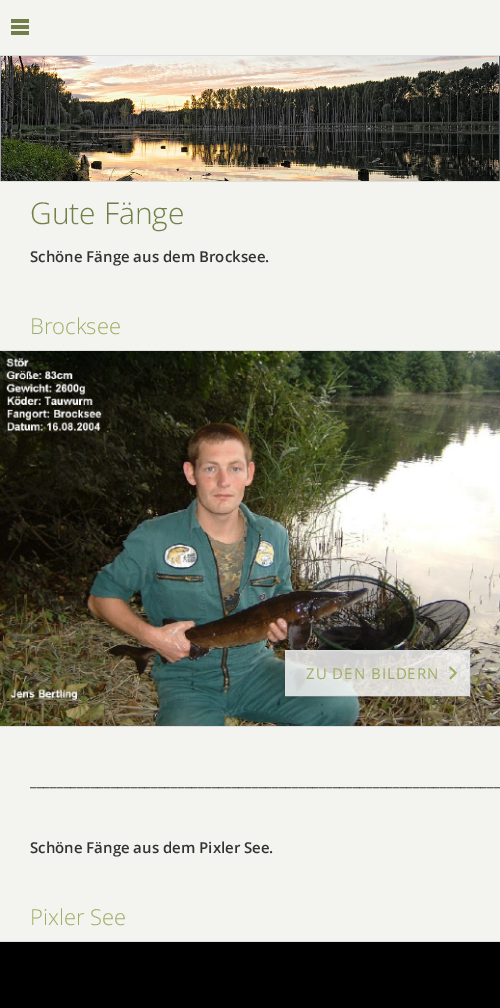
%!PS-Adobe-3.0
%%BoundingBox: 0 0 500 1008
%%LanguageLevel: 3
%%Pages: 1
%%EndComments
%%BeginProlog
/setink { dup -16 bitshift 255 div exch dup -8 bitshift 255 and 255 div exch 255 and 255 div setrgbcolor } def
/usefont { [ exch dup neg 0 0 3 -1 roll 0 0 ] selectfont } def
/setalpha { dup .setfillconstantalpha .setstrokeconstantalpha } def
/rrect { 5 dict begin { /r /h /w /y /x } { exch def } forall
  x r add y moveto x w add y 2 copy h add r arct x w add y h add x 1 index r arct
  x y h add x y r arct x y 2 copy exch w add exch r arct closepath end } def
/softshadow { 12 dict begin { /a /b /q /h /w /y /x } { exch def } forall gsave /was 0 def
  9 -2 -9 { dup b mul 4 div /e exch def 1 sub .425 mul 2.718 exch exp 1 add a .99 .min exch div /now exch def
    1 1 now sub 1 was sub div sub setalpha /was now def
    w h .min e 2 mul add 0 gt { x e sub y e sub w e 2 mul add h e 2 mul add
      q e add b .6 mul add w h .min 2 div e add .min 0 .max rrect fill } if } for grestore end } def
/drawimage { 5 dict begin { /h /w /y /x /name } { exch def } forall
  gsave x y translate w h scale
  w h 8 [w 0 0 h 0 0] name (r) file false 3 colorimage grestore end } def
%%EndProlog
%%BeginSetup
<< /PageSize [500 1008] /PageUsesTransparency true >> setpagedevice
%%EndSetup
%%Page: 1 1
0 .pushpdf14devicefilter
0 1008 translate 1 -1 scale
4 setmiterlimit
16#F3F4EF setink
0 0 500 1008 rectfill
(img1.raw) 11 19 18 16 drawimage
16#DCDDD9 setink
0 55 500 1 rectfill
0 181 500 1 rectfill
(img2.raw) 0 56 500 125 drawimage
/OpenSans-Light 30 usefont
16#737F49 setink
30 224 moveto (Gute Fänge) show
/OpenSans-SemiBold 15 usefont
16#333333 setink
30 262 moveto (Schöne Fänge aus dem Brocksee.) show
/OpenSans-Light 22 usefont
16#9DAD63 setink
30 334 moveto (Brocksee) show
16#DDDDDD setink
0 350 500 1 rectfill
0 726 500 1 rectfill
(img3.raw) 0 351 500 375 drawimage
gsave
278 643 moveto 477 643 lineto 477 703 lineto 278 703 lineto closepath 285 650 moveto 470 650 lineto 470 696 lineto 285 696 lineto closepath eoclip newpath
16#000000 setink
285 650 185 46 0 2 0.2 softshadow
grestore
0.8 setalpha
16#FFFFFF setink
286 651 183 44 rectfill
1 setalpha
(img4.raw) 449 666 9 14 drawimage
16#DDDDDD setink
285.5 650.5 184 45 rectstroke
/OpenSans-Regular 15 usefont
16#9DAD63 setink
306 679 moveto 1 0 (ZU DEN BILDERN) ashow
16#333333 setink
30 786 moveto (______________________________________________________________________) show
/OpenSans-SemiBold 15 usefont
30 853 moveto (Schöne Fänge aus dem Pixler See.) show
/OpenSans-Light 22 usefont
16#9DAD63 setink
30 925 moveto (Pixler See) show
16#DDDDDD setink
0 941 500 1 rectfill
16#000000 setink
0 942 500 66 rectfill
.poppdf14devicefilter showpage
%%EOF
